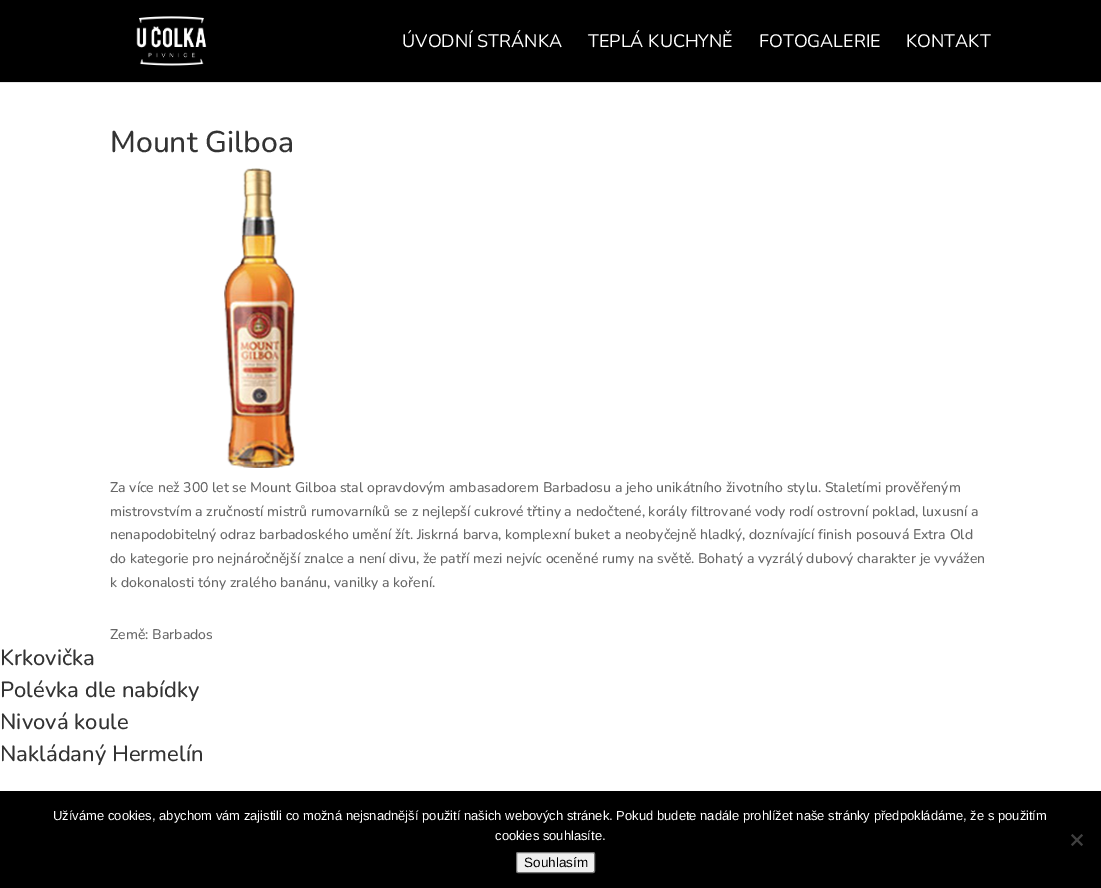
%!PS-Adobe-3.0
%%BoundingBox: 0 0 1101 888
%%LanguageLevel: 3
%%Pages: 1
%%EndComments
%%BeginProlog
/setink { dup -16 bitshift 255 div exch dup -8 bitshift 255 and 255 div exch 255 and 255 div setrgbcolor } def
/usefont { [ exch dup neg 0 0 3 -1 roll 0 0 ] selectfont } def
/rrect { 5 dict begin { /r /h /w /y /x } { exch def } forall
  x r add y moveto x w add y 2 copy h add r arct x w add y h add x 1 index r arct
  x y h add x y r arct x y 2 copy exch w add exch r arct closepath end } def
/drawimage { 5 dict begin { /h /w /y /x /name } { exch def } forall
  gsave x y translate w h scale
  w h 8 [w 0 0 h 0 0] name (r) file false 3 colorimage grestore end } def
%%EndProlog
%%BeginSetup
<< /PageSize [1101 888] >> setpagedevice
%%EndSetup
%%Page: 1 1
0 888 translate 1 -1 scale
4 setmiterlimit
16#FFFFFF setink
0 0 1101 888 rectfill
16#E6E6E6 setink
0 82 1101 1 rectfill
16#000000 setink
0 0 1101 82 rectfill
(img1.raw) 136 16 71 50 drawimage
/Nunito-Regular 18 usefont
16#FFFFFF setink
[
    [(ÚVODNÍ STRÁNKA) 402 47]
    [(TEPLÁ KUCHYNĚ) 588 47]
    [(FOTOGALERIE) 759 47]
    [(KONTAKT) 906 47]
] { aload pop moveto show } forall
/Nunito-Medium 30 usefont
16#333333 setink
110 152 moveto (Mount Gilboa) show
(img2.raw) 224 168 71 300 drawimage
/Nunito-Medium 14 usefont
16#666666 setink
[
    [(Za více než 300 let se Mount Gilboa stal opravdovým ambasadorem Barbadosu a jeho unikátního životního stylu. Staletími prověřeným) 110 492]
    [(mistrovstvím a zručností mistrů rumovarníků se z nejlepší cukrové třtiny a nedočtené, korály filtrované vody rodí ostrovní poklad, luxusní a) 110 516]
    [(nenapodobitelný odraz barbadoského umění žít. Jiskrná barva, komplexní buket a neobyčejně hladký, doznívající finish posouvá Extra Old) 110 539]
    [(do kategorie pro nejnáročnější znalce a není divu, že patří mezi nejvíc oceněné rumy na světě. Bohatý a vyzrálý dubový charakter je vyvážen) 110 563]
    [(k dokonalosti tóny zralého banánu, vanilky a koření.) 110 587]
    [(Země: Barbados) 110 639]
] { aload pop moveto show } forall
/Nunito-Medium 22 usefont
16#333333 setink
[
    [(Krkovička) 0 665]
    [(Polévka dle nabídky) 0 697]
    [(Nivová koule) 0 729]
    [(Nakládaný Hermelín) 0 761]
] { aload pop moveto show } forall
16#000000 setink
0 791 1101 97 rectfill
/LiberationSans-Regular 13 usefont
16#FFFFFF setink
53 820 moveto (Užíváme cookies, abychom vám zajistili co možná nejsnadnější použití našich webových stránek. Pokud budete nadále prohlížet naše stránky předpokládáme, že s použitím) show
495 840 moveto (cookies souhlasíte.) show
16#404040 setink
1081.5 834 moveto 1083 835.5 lineto 1072.5 846 lineto 1071 844.5 lineto closepath fill
1071 835.5 moveto 1072.5 834 lineto 1083 844.5 lineto 1081.5 846 lineto closepath fill
16#EFEFEF setink
516.5 852.5 78 20 1.5 rrect gsave fill grestore
16#767676 setink
stroke
/LiberationSans-Regular 13.5 usefont
16#000000 setink
524 867 moveto (Souhlasím) show
showpage
%%EOF
